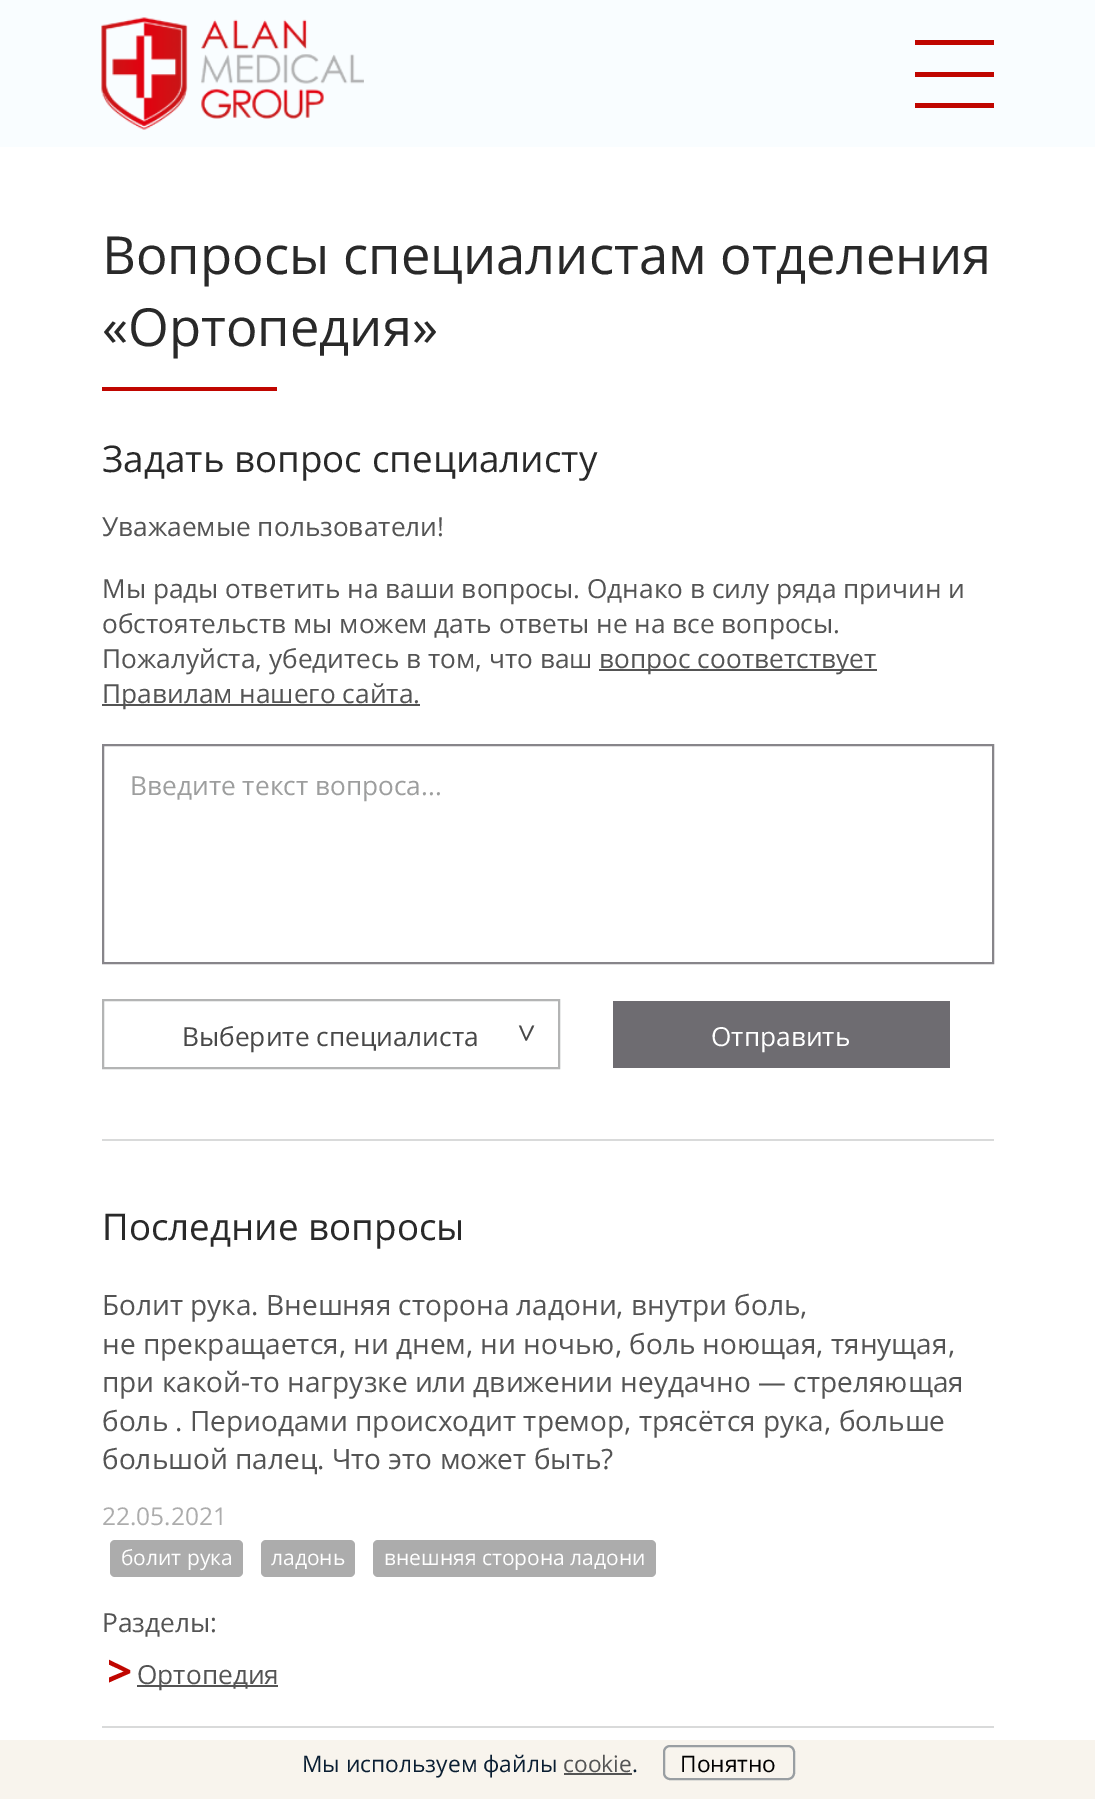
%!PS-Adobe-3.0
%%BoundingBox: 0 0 1095 1799
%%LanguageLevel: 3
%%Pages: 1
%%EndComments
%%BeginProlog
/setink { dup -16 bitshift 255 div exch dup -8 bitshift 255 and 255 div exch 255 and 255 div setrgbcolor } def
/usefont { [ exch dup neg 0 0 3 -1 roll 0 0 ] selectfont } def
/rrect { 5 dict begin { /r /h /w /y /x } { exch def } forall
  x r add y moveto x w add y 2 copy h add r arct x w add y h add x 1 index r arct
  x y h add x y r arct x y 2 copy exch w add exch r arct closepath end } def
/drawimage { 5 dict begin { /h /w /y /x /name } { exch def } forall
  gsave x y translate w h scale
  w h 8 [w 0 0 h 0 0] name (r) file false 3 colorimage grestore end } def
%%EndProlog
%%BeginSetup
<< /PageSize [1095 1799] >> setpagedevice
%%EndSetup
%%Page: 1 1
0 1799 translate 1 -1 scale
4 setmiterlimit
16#FFFFFF setink
0 0 1095 1799 rectfill
16#F9FDFF setink
0 0 1095 147 rectfill
(img1.raw) 101 17 263 113 drawimage
[
    [915 40 79 5 16#C00600]
    [915 72 79 5 16#C00600]
    [915 103 79 5 16#C00600]
] { aload pop setink rectfill } forall
/OpenSans-Regular 52.5 usefont
16#292929 setink
102 274 moveto (Вопросы специалистам отделения) show
102 346 moveto («Ортопедия») show
16#C00600 setink
102 387 175 4 rectfill
/OpenSans-Regular 36.75 usefont
16#292929 setink
102 472 moveto (Задать вопрос специалисту) show
/OpenSans-Regular 26.25 usefont
16#545454 setink
[
    [(Уважаемые пользователи!) 102 536]
    [(Мы рады ответить на ваши вопросы. Однако в силу ряда причин и) 102 598]
    [(обстоятельств мы можем дать ответы не на все вопросы.) 102 633]
    [(Пожалуйста, убедитесь в том, что ваш) 102 668]
] { aload pop moveto show } forall
599 669 278 2 rectfill
599 668 moveto (вопрос соответствует) show
102 704 318 2 rectfill
102 703 moveto (Правилам нашего сайта.) show
16#87858A setink
2 setlinewidth
103 745 890 218 rectstroke
16#9D9E9E setink
130 795 moveto (Введите текст вопроса...) show
16#B3B4B4 setink
103 1000 456 68 rectstroke
16#484848 setink
182 1046 moveto (Выберите специалиста) show
/OpenSans-Regular 32 usefont
gsave 515 1024 translate 90 rotate 0 0 moveto -3 0 (>) ashow grestore
16#6E6C71 setink
613 1001 337 67 rectfill
/OpenSans-Regular 26.25 usefont
16#FFFFFF setink
711 1046 moveto (Отправить) show
16#D9DADA setink
102 1139 892 2 rectfill
/OpenSans-Regular 36.75 usefont
16#292929 setink
102 1240 moveto (Последние вопросы) show
16#D9DADA setink
102 1726 892 2 rectfill
/OpenSans-Regular 28 usefont
16#545454 setink
[
    [(Болит рука. Внешняя сторона ладони, внутри боль,) 102 1315]
    [(не прекращается, ни днем, ни ночью, боль ноющая, тянущая,) 102 1354]
    [(при какой-то нагрузке или движении неудачно — стреляющая) 102 1392]
    [(боль . Периодами происходит тремор, трясётся рука, больше) 102 1431]
    [(большой палец. Что это может быть?) 102 1469]
] { aload pop moveto show } forall
/OpenSans-Regular 24.5 usefont
16#ACACAC setink
102 1525 moveto (22.05.2021) show
110 1540 133 37 5 rrect fill
/OpenSans-Regular 21 usefont
16#FFFFFF setink
121 1565 moveto (болит рука) show
16#ACACAC setink
261 1540 94 37 5 rrect fill
16#FFFFFF setink
271 1565 moveto (ладонь) show
16#ACACAC setink
373 1540 283 37 5 rrect fill
16#FFFFFF setink
384 1565 moveto (внешняя сторона ладони) show
/OpenSans-Regular 26.25 usefont
16#545454 setink
102 1632 moveto (Разделы:) show
/OpenSans-Bold 44 usefont
16#C00600 setink
107 1687 moveto -7 0 (>) ashow
16#545454 setink
137 1685 141 2 rectfill
/OpenSans-Regular 26.25 usefont
137 1684 moveto (Ортопедия) show
16#F8F4ED setink
0 1740 1095 59 rectfill
/OpenSans-Regular 22.75 usefont
16#0A1E32 setink
302 1772 moveto (Мы используем файлы) show
16#545454 setink
563 1772 moveto (cookie) show
564 1773 68 2 rectfill
16#0A1E32 setink
632 1772 moveto (.) show
16#999EA2 setink
664 1746 130 33 6 rrect stroke
16#000000 setink
680 1772 moveto (Понятно) show
showpage
%%EOF
